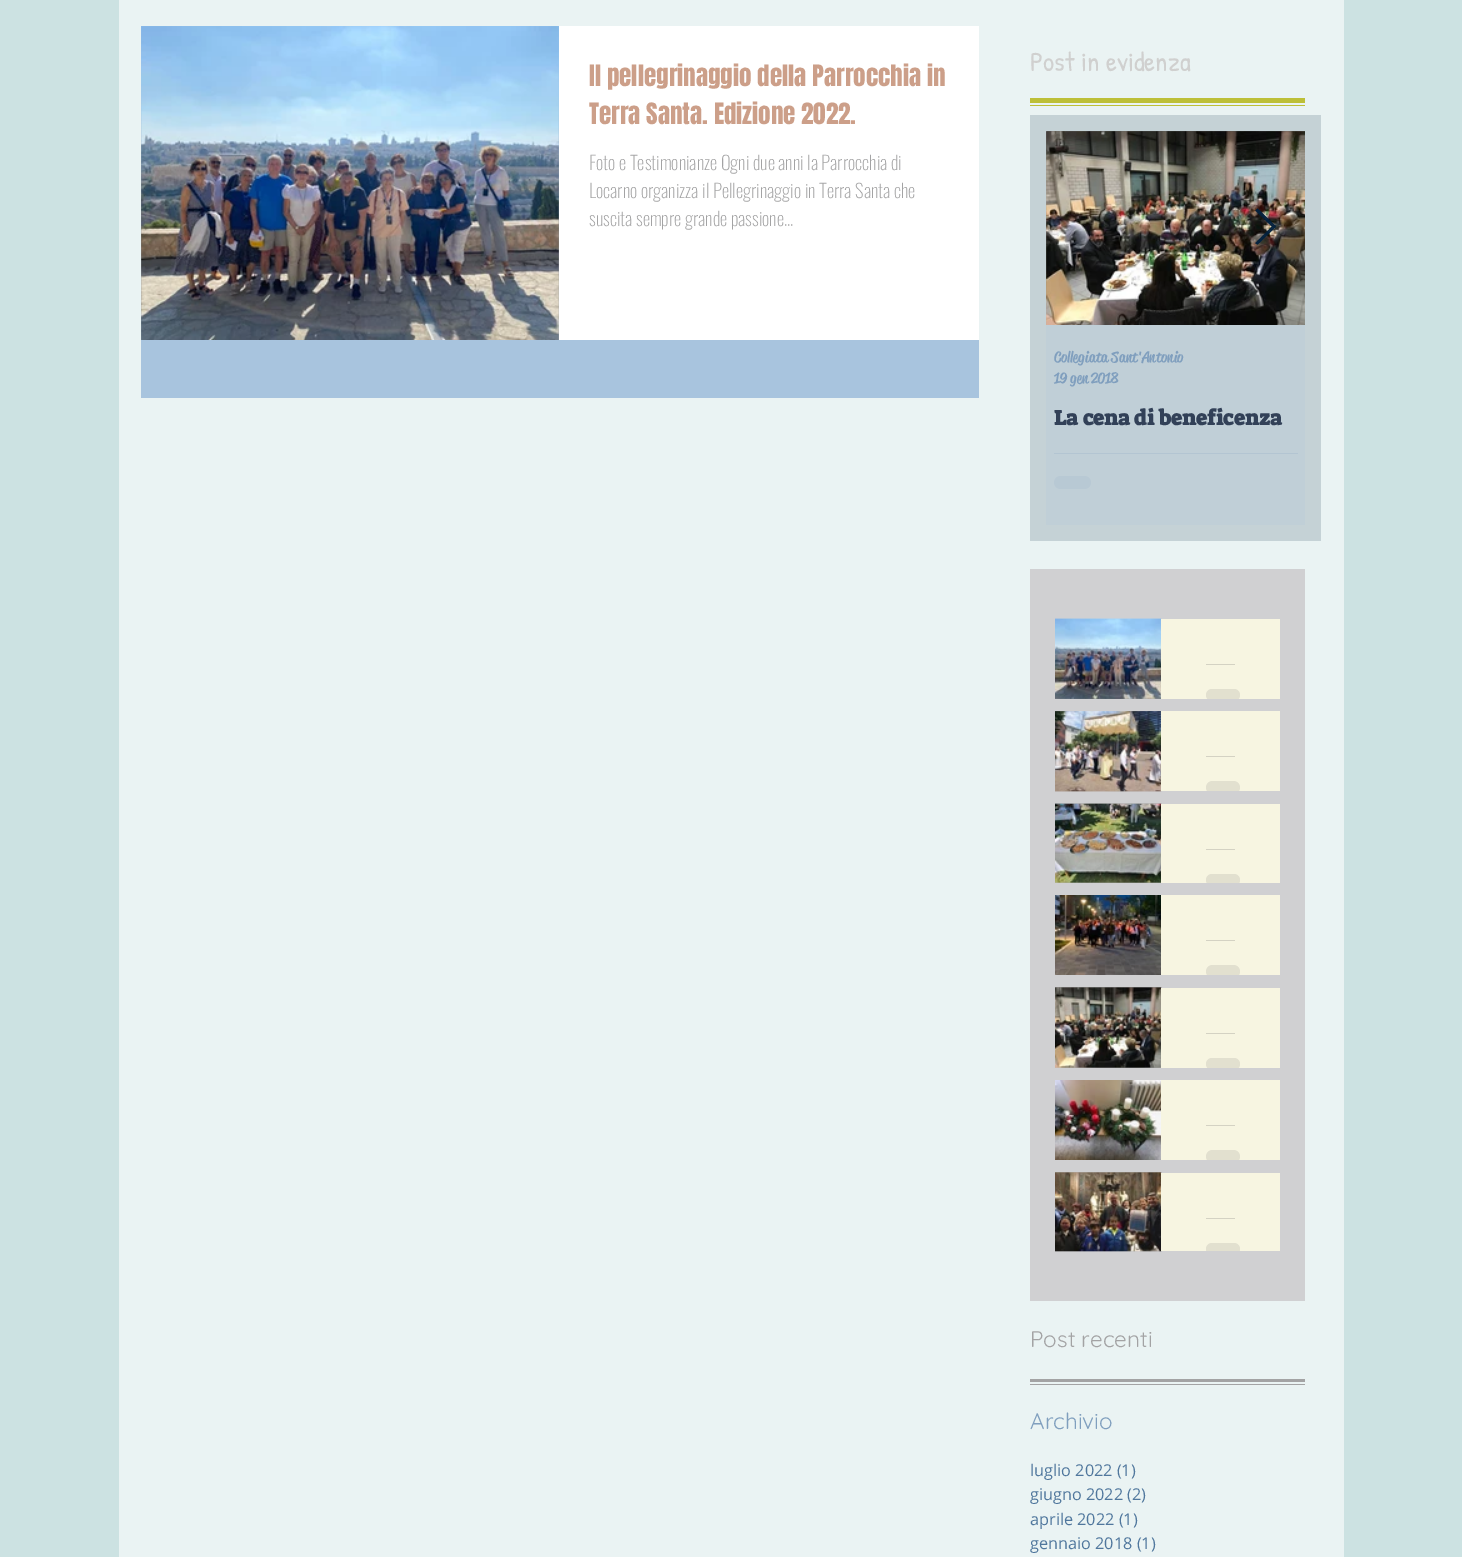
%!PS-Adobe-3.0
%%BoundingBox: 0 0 1462 1557
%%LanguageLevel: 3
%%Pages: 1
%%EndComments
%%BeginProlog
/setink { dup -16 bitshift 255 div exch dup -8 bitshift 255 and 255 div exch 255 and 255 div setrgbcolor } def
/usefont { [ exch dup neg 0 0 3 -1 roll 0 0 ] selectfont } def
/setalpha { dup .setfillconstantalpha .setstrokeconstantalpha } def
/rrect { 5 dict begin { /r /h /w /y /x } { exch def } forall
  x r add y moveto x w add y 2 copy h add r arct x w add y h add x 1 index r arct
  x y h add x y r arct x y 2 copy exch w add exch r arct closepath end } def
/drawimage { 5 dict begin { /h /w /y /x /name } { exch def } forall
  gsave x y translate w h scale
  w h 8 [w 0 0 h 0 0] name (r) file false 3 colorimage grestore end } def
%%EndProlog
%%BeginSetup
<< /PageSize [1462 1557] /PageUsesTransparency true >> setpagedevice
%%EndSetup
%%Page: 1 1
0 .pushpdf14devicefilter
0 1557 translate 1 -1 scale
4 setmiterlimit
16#CCE2E2 setink
0 0 1462 1557 rectfill
16#EAF3F3 setink
119 0 1225 1557 rectfill
16#A8C4DE setink
141 26 838 372 rectfill
(img1.raw) 141 26 418 314 drawimage
(img2.raw) 141 26 418 314 drawimage
16#FFFFFF setink
559 26 420 314 rectfill
/Anton-Regular 25 usefont
16#CC9F89 setink
589 86 moveto (Il pellegrinaggio della Parrocchia in) show
589 124 moveto (Terra Santa. Edizione 2022.) show
/Oswald-ExtraLight 18.75 usefont
16#A3A3A4 setink
[
    [(Foto e Testimonianze Ogni due anni la Parrocchia di) 589 170]
    [(Locarno organizza il Pellegrinaggio in Terra Santa che) 589 198]
    [(suscita sempre grande passione...) 589 226]
] { aload pop moveto show } forall
/PatrickHand-Regular 27.5 usefont
16#D0D0CF setink
1030 71 moveto (Post in evidenza) show
[
    [1030 98 275 5 16#BDBF37]
    [1030 105 275 1 16#BDBF37]
    [1030 115 291 426 16#C5D2D6]
] { aload pop setink rectfill } forall
(img3.raw) 1046 131 259 194 drawimage
(img4.raw) 1046 131 259 194 drawimage
0.9 setalpha
16#02213E setink
1256 210.5 moveto 1257.5 209 lineto 1275.5 226.5 lineto 1257.5 244 lineto 1256 243 lineto 1272.5 226.5 lineto closepath gsave fill grestore
stroke
1 setalpha
16#C0CFD7 setink
1046 325 259 200 rectfill
/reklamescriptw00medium-Medium 15 usefont
16#809FBE setink
1054 362 moveto (Collegiata Sant'Antonio) show
1054 383 moveto (19 gen 2018) show
/SuezOne-Bold 21.25 usefont
16#324158 setink
1054 425 moveto (La cena di beneficenza) show
16#B3C5D2 setink
1054 453 244 1 rectfill
16#B8C9D4 setink
1054 476 37 13 6.5 rrect fill
16#D0D0D2 setink
1030 569 275 732 rectfill
(img5.raw) 1055 618 107 81 drawimage
(img6.raw) 1055 618 107 81 drawimage
16#F7F5E1 setink
1161 619 119 80 rectfill
16#D4D2C3 setink
1206 664 29 1 rectfill
gsave
1161 619 119 80 rectclip
16#E2E0CF setink
1206 689 34 12 6 rrect fill
grestore
(img7.raw) 1055 711 107 81 drawimage
(img8.raw) 1055 711 107 81 drawimage
16#F7F5E1 setink
1161 711 119 80 rectfill
16#D4D2C3 setink
1206 756 29 1 rectfill
gsave
1161 711 119 80 rectclip
16#E2E0CF setink
1206 781 34 13 6.5 rrect fill
grestore
(img9.raw) 1055 803 107 80 drawimage
(img10.raw) 1055 803 107 80 drawimage
16#F7F5E1 setink
1161 804 119 79 rectfill
16#D4D2C3 setink
1206 849 29 1 rectfill
gsave
1161 804 119 79 rectclip
16#E2E0CF setink
1206 874 34 12 6 rrect fill
grestore
(img11.raw) 1055 895 106 80 drawimage
16#F7F5E1 setink
1161 895 119 80 rectfill
16#D4D2C3 setink
1206 940 29 1 rectfill
gsave
1161 895 119 80 rectclip
16#E2E0CF setink
1206 965 34 13 6.5 rrect fill
grestore
(img12.raw) 1055 987 107 81 drawimage
(img13.raw) 1055 987 107 81 drawimage
16#F7F5E1 setink
1161 988 119 80 rectfill
16#D4D2C3 setink
1206 1033 29 1 rectfill
gsave
1161 988 119 80 rectclip
16#E2E0CF setink
1206 1058 34 12 6 rrect fill
grestore
(img14.raw) 1055 1080 106 80 drawimage
16#F7F5E1 setink
1161 1080 119 80 rectfill
16#D4D2C3 setink
1206 1125 29 1 rectfill
gsave
1161 1080 119 80 rectclip
16#E2E0CF setink
1206 1150 34 13 6.5 rrect fill
grestore
(img15.raw) 1055 1172 107 80 drawimage
(img16.raw) 1055 1172 107 80 drawimage
16#F7F5E1 setink
1161 1173 119 78 rectfill
16#D4D2C3 setink
1206 1218 29 1 rectfill
gsave
1161 1173 119 78 rectclip
16#E2E0CF setink
1206 1243 34 12 6 rrect fill
grestore
/Quicksand-Regular 22.5 usefont
16#A3A3A4 setink
1030 1347 moveto (Post recenti) show
1030 1379 275 3 rectfill
1030 1384 275 1 rectfill
16#809FBE setink
1030 1429 moveto (Archivio) show
/OpenSans-Regular 16.25 usefont
16#50779D setink
[
    [(luglio 2022 \(1\)) 1030 1476]
    [(giugno 2022 \(2\)) 1030 1500]
    [(aprile 2022 \(1\)) 1030 1525]
    [(gennaio 2018 \(1\)) 1030 1549]
] { aload pop moveto show } forall
.poppdf14devicefilter showpage
%%EOF
